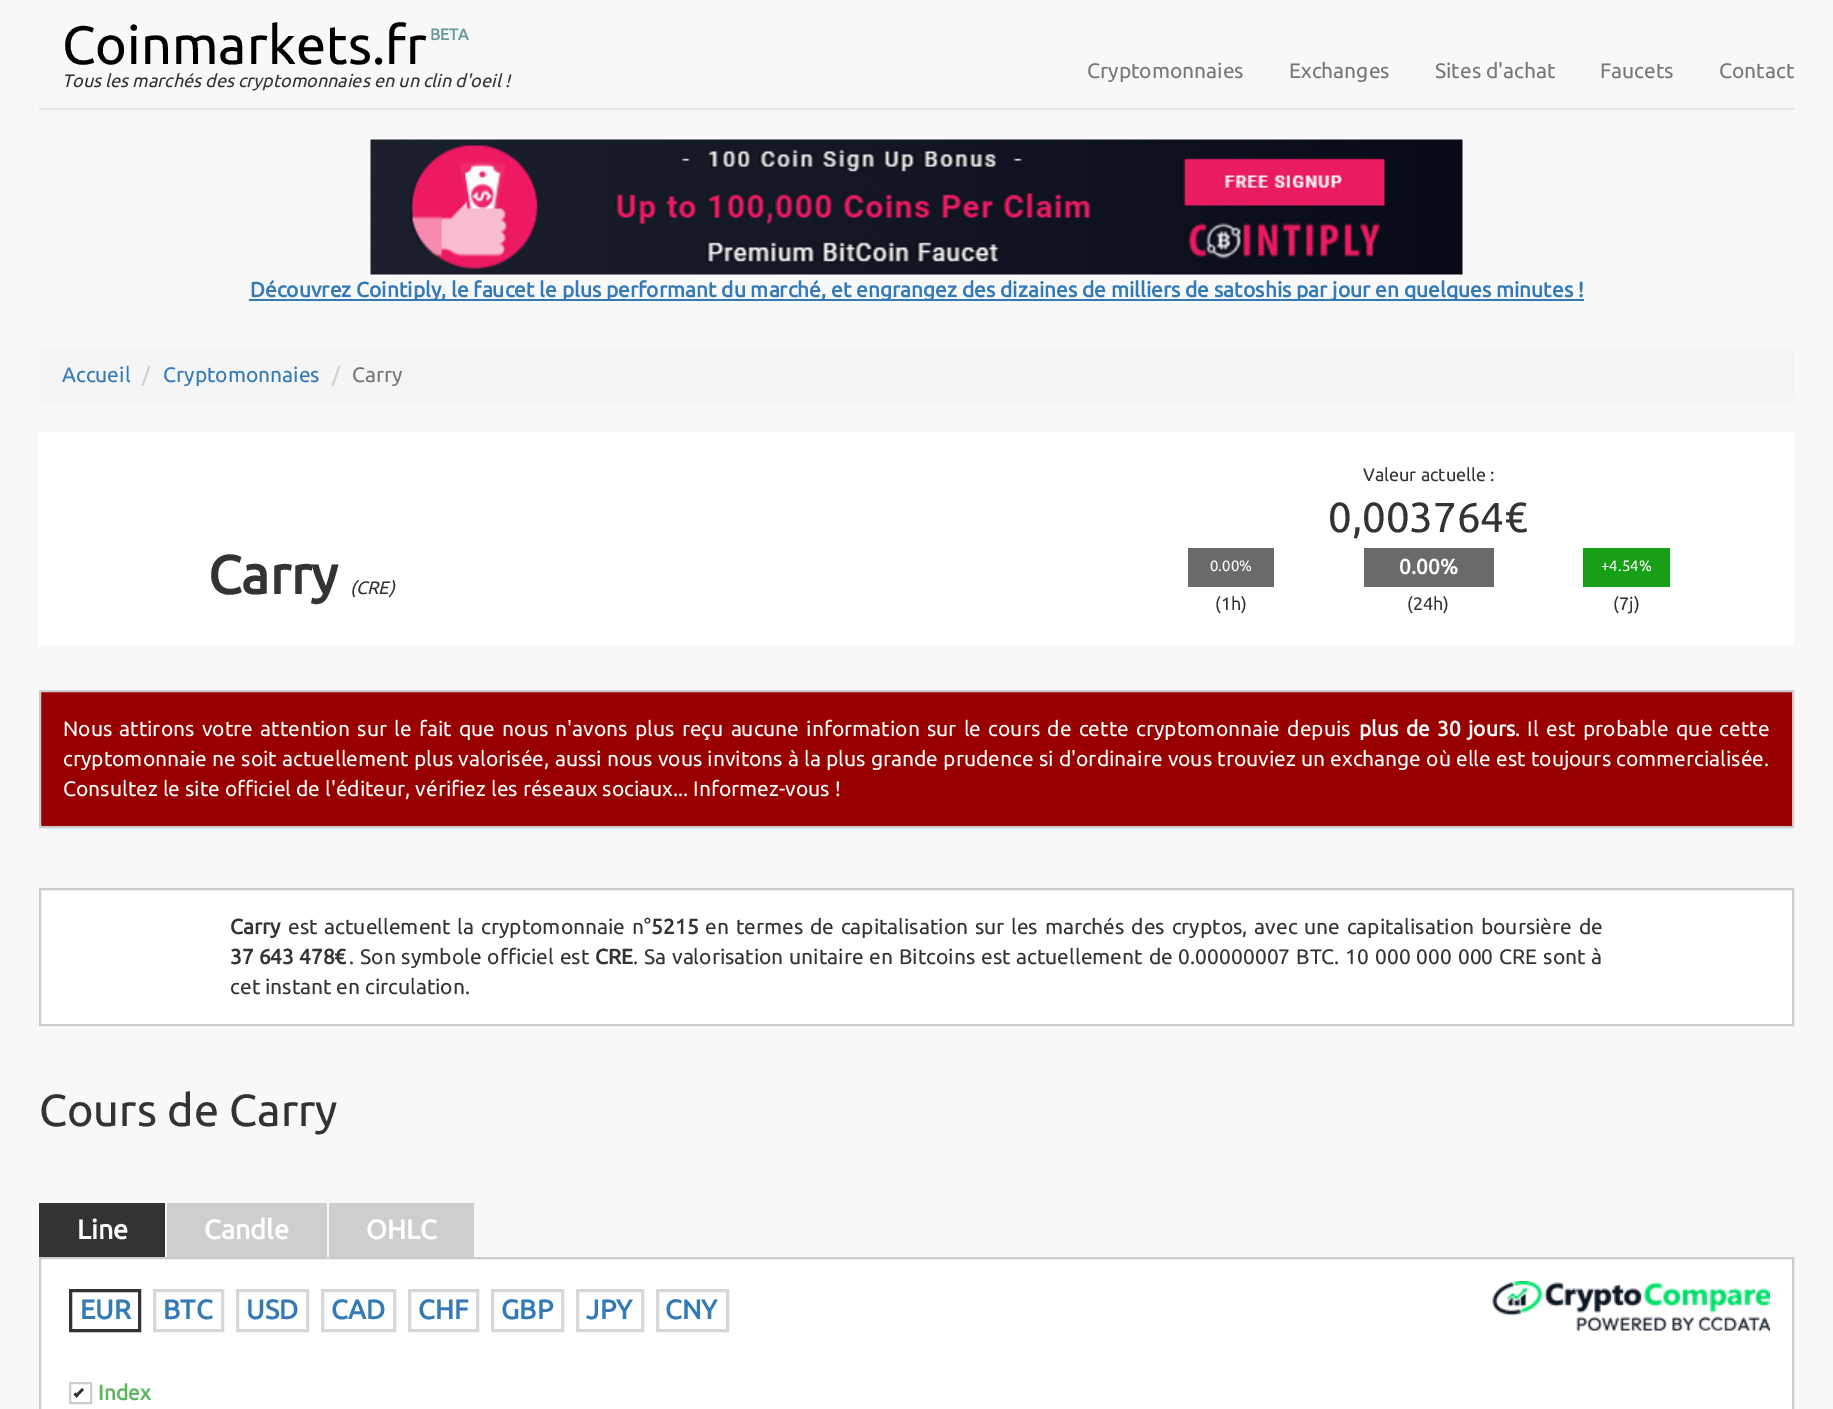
%!PS-Adobe-3.0
%%BoundingBox: 0 0 1833 1409
%%LanguageLevel: 3
%%Pages: 1
%%EndComments
%%BeginProlog
/setink { dup -16 bitshift 255 div exch dup -8 bitshift 255 and 255 div exch 255 and 255 div setrgbcolor } def
/usefont { [ exch dup neg 0 0 3 -1 roll 0 0 ] selectfont } def
/rrect { 5 dict begin { /r /h /w /y /x } { exch def } forall
  x r add y moveto x w add y 2 copy h add r arct x w add y h add x 1 index r arct
  x y h add x y r arct x y 2 copy exch w add exch r arct closepath end } def
/drawimage { 5 dict begin { /h /w /y /x /name } { exch def } forall
  gsave x y translate w h scale
  w h 8 [w 0 0 h 0 0] name (r) file false 3 colorimage grestore end } def
%%EndProlog
%%BeginSetup
<< /PageSize [1833 1409] >> setpagedevice
%%EndSetup
%%Page: 1 1
0 1409 translate 1 -1 scale
4 setmiterlimit
16#F8F8F8 setink
0 0 1833 1409 rectfill
16#E7E7E7 setink
39 108 1755 2 rectfill
/Ubuntu-Regular 54 usefont
16#000000 setink
62 64 moveto (Coinmarkets.fr) show
/Ubuntu-Bold 16 usefont
16#669999 setink
430 40 moveto (BETA) show
/Ubuntu-Italic 18 usefont
16#333333 setink
62 87 moveto (Tous les marchés des cryptomonnaies en un clin d'oeil !) show
/Ubuntu-Regular 21 usefont
16#777777 setink
[
    [(Cryptomonnaies) 1087 78]
    [(Exchanges) 1289 78]
    [(Sites d'achat) 1435 78]
    [(Faucets) 1600 78]
    [(Contact) 1719 78]
] { aload pop moveto show } forall
(img1.raw) 370 139 1093 136 drawimage
16#337AB7 setink
249 299 1335 2 rectfill
/Ubuntu-Bold 21 usefont
250 297 moveto (Découvrez Cointiply, le faucet le plus performant du marché, et engrangez des dizaines de milliers de satoshis par jour en quelques minutes !) show
16#F5F5F5 setink
39 348 1755 54 6 rrect fill
/Ubuntu-Regular 21 usefont
16#337AB7 setink
62 382 moveto (Accueil) show
16#CCCCCC setink
142 382 moveto (/) show
16#337AB7 setink
163 382 moveto (Cryptomonnaies) show
16#CCCCCC setink
332 382 moveto (/) show
16#777777 setink
352 382 moveto (Carry) show
16#FFFFFF setink
39 432 1755 213 rectfill
/Ubuntu-Bold 54 usefont
16#333333 setink
208 594 moveto (Carry) show
/Ubuntu-Italic 18 usefont
350 594 moveto (\(CRE\)) show
/Ubuntu-Regular 18 usefont
1363 481 moveto (Valeur actuelle :) show
/Ubuntu-Regular 42 usefont
1328 532 moveto (0,003764€) show
16#6A6A6A setink
1188 548 86 39 rectfill
/Ubuntu-Regular 15 usefont
16#FFFFFF setink
1210 571 moveto (0.00%) show
/Ubuntu-Regular 18 usefont
16#333333 setink
1215 610 moveto (\(1h\)) show
16#6A6A6A setink
1364 548 130 39 rectfill
/Ubuntu-Bold 21 usefont
16#FFFFFF setink
1399 574 moveto (0.00%) show
/Ubuntu-Regular 18 usefont
16#333333 setink
1407 610 moveto (\(24h\)) show
16#189F18 setink
1583 548 87 39 rectfill
/Ubuntu-Regular 15 usefont
16#FFFFFF setink
1601 571 moveto (+4.54%) show
/Ubuntu-Regular 18 usefont
16#333333 setink
1613 610 moveto (\(7j\)) show
16#990000 setink
40 691 moveto 1793 691 lineto 1793 827 lineto 40 827 lineto closepath gsave fill grestore
16#CCCCCC setink
2 setlinewidth
stroke
/Ubuntu-Regular 21 usefont
16#FFFFFF setink
63 736 moveto 2.4 0 32 (Nous attirons votre attention sur le fait que nous n'avons plus reçu aucune information sur le cours de cette cryptomonnaie depuis) widthshow
/Ubuntu-Bold 21 usefont
1359 736 moveto 2.4 0 32 (plus de 30 jours) widthshow
/Ubuntu-Regular 21 usefont
1515 736 moveto 2.4 0 32 (. Il est probable que cette) widthshow
63 766 moveto 0.35 0 32 (cryptomonnaie ne soit actuellement plus valorisée, aussi nous vous invitons à la plus grande prudence si d'ordinaire vous trouviez un exchange où elle est toujours commercialisée.) widthshow
63 796 moveto (Consultez le site officiel de l'éditeur, vérifiez les réseaux sociaux... Informez-vous !) show
40 889 moveto 1793 889 lineto 1793 1025 lineto 40 1025 lineto closepath gsave fill grestore
16#CCCCCC setink
stroke
/Ubuntu-Bold 21 usefont
16#333333 setink
230 934 moveto (Carry) show
/Ubuntu-Regular 21 usefont
288 934 moveto 1.9 0 32 (est actuellement la cryptomonnaie n°) widthshow
/Ubuntu-Bold 21 usefont
651 934 moveto (5215) show
/Ubuntu-Regular 21 usefont
705 934 moveto 1.9 0 32 (en termes de capitalisation sur les marchés des cryptos, avec une capitalisation boursière de) widthshow
/Ubuntu-Bold 21 usefont
230 964 moveto (37 643 478€) show
/Ubuntu-Regular 21 usefont
349 964 moveto 1 0 32 (. Son symbole officiel est) widthshow
/Ubuntu-Bold 21 usefont
595 964 moveto (CRE) show
/Ubuntu-Regular 21 usefont
633 964 moveto (.) show
644 964 moveto 1 0 32 (Sa valorisation unitaire en Bitcoins est actuellement de 0.00000007 BTC. 10 000 000 000 CRE sont à) widthshow
230 994 moveto (cet instant en circulation.) show
/Ubuntu-Regular 45 usefont
39 1126 moveto (Cours de Carry) show
39 1203 126 54 rectfill
/Ubuntu-Bold 27 usefont
16#FFFFFF setink
77 1239 moveto (Line) show
16#CECECE setink
167 1203 160 54 rectfill
16#FFFFFF setink
204 1239 moveto (Candle) show
16#CECECE setink
329 1203 145 54 rectfill
16#FFFFFF setink
366 1239 moveto (OHLC) show
40 1258 moveto 1793 1258 lineto 1793 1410 lineto 40 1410 lineto closepath gsave fill grestore
16#CCCCCC setink
stroke
16#333333 setink
3 setlinewidth
70.5 1290.5 69 40 rectstroke
16#337AB7 setink
80 1319 moveto (EUR) show
16#D7D7D7 setink
154.5 1290.5 68 40 rectstroke
16#337AB7 setink
163 1319 moveto (BTC) show
16#D7D7D7 setink
237.5 1290.5 70 40 rectstroke
16#337AB7 setink
246 1319 moveto (USD) show
16#D7D7D7 setink
322.5 1290.5 72 40 rectstroke
16#337AB7 setink
331 1319 moveto (CAD) show
16#D7D7D7 setink
409.5 1290.5 68 40 rectstroke
16#337AB7 setink
418 1319 moveto (CHF) show
16#D7D7D7 setink
492.5 1290.5 70 40 rectstroke
16#337AB7 setink
501 1319 moveto (GBP) show
16#D7D7D7 setink
577.5 1290.5 65 40 rectstroke
16#337AB7 setink
586 1319 moveto (JPY) show
16#D7D7D7 setink
657.5 1290.5 70 40 rectstroke
16#337AB7 setink
665 1319 moveto (CNY) show
(img2.raw) 1492 1281 278 50 drawimage
16#CCCCCC setink
2 setlinewidth
70 1383 21 20 rectstroke
/Ubuntu-Bold 21 usefont
16#5CB85C setink
98 1400 moveto (Index) show
16#333333 setink
74.5 1395.5 moveto 82 1388 lineto 84 1390 lineto 76.5 1397.5 lineto closepath fill
73.5 1394.5 moveto 75.5 1392.5 lineto 79 1395.5 lineto 76.5 1397.5 lineto closepath fill
showpage
%%EOF
